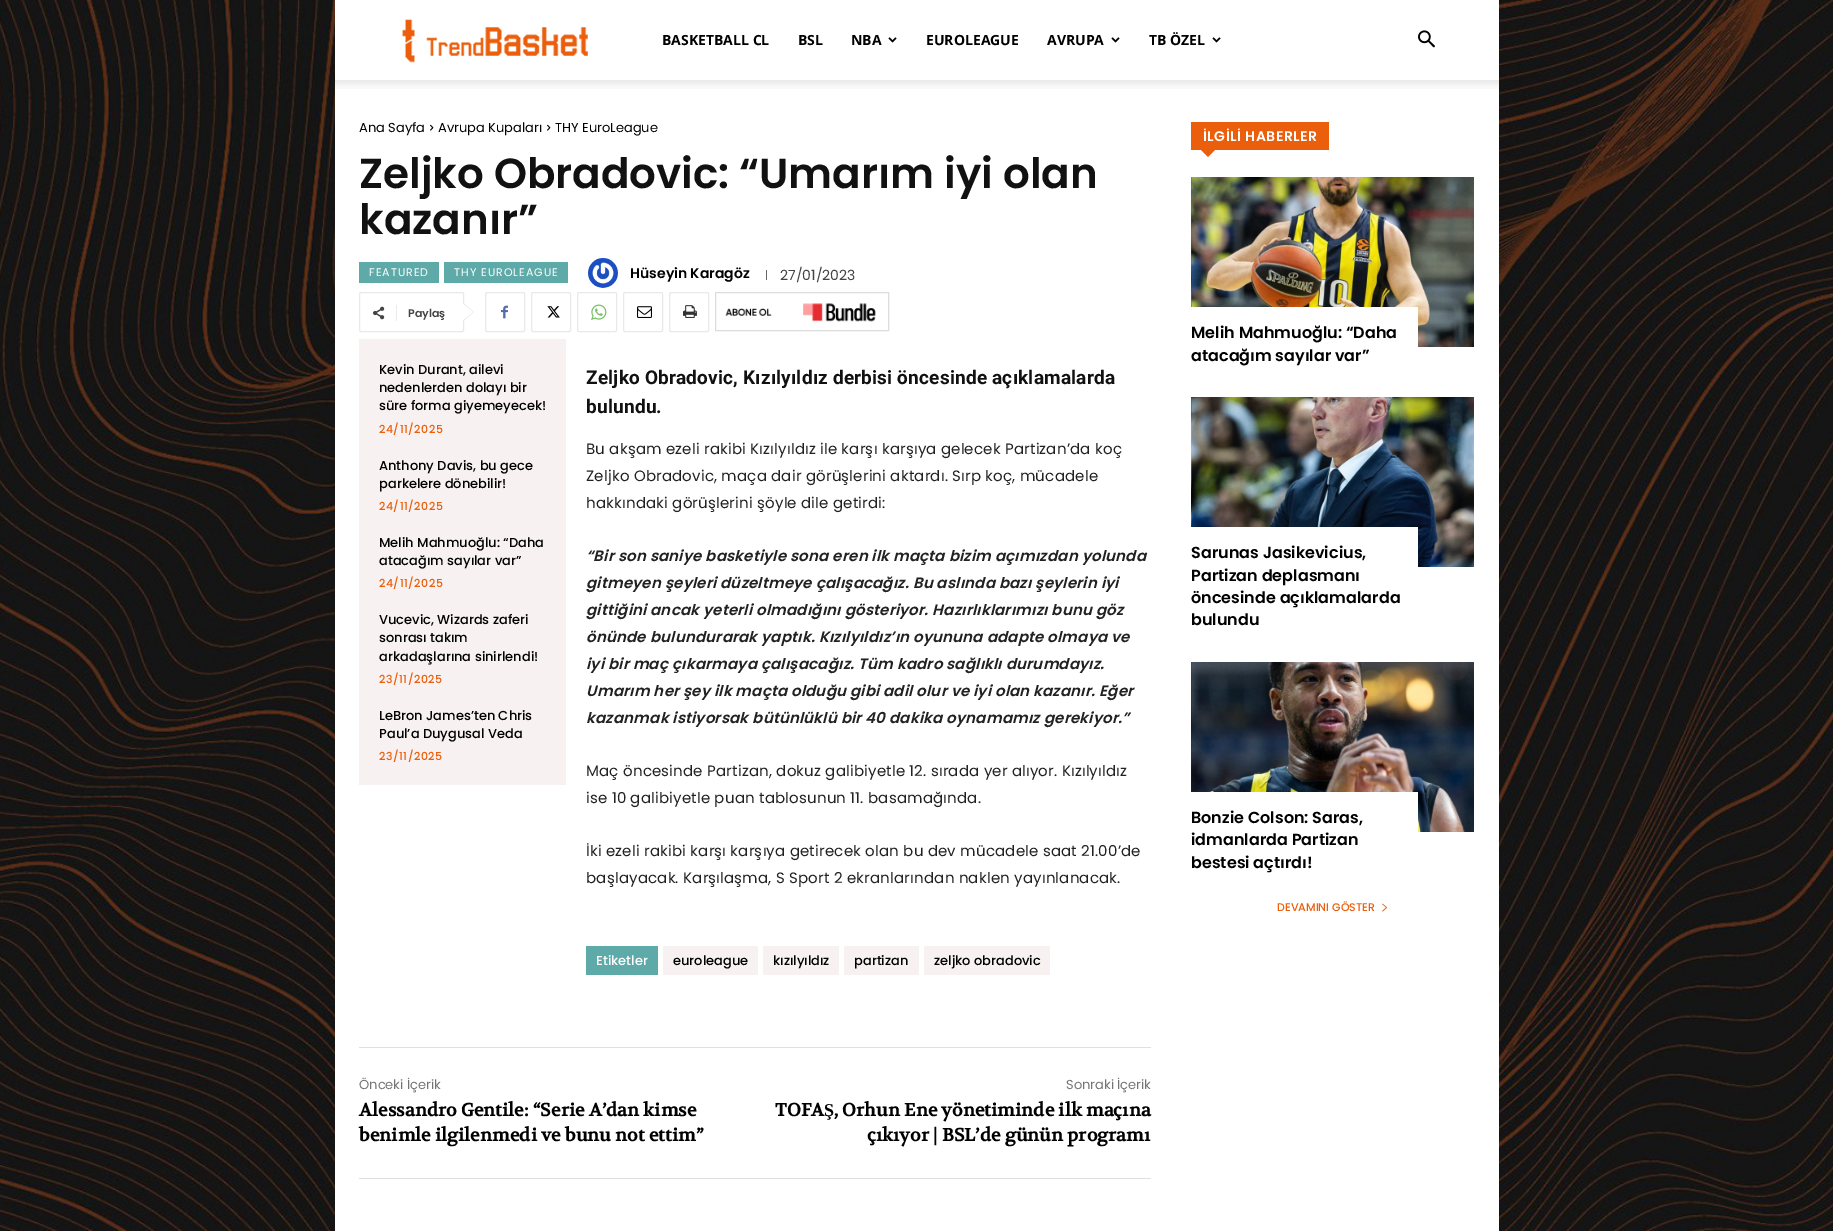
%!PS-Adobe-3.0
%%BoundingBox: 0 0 1833 1231
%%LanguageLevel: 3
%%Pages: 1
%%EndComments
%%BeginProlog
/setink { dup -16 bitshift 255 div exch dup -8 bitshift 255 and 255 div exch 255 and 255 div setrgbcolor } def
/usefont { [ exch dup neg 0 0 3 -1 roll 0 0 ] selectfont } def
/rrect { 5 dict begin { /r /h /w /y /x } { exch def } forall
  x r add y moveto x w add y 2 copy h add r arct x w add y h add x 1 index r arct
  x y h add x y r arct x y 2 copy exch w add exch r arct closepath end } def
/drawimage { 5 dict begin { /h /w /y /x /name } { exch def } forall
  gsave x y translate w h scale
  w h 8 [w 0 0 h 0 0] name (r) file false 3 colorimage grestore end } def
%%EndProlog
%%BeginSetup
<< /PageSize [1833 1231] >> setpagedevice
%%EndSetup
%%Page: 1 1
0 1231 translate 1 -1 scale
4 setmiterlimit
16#FFFFFF setink
0 0 1833 1231 rectfill
(img1.raw) 0 0 1833 1231 drawimage
335 0 1164 1231 rectfill
(img2.raw) 402 19 186 44 drawimage
/OpenSans-Bold 14 usefont
16#000000 setink
[
    [(BASKETBALL CL) 662 45]
    [(BSL) 798 45]
    [(NBA) 851 45]
] { aload pop moveto show } forall
(img3.raw) 888 37 9 6 drawimage
926 45 moveto (EUROLEAGUE) show
1047 45 moveto (AVRUPA) show
(img3.raw) 1111 37 9 6 drawimage
1149 45 moveto (TB ÖZEL) show
(img3.raw) 1212 37 9 6 drawimage
(img4.raw) 1418 30 17 18 drawimage
(img5.raw) 335 80 1164 9 drawimage
/Poppins-Regular 13 usefont
359 132 moveto (Ana Sayfa) show
(img6.raw) 430 124 4 7 drawimage
438 132 moveto (Avrupa Kupaları) show
(img6.raw) 547 124 4 7 drawimage
555 132 moveto (THY EuroLeague) show
/Poppins-SemiBold 42 usefont
16#111111 setink
359 188 moveto (Zeljko Obradovic: “Umarım iyi olan) show
359 234 moveto (kazanır”) show
16#5EAAA8 setink
359 262 80 21 rectfill
/Poppins-Regular 11 usefont
16#FFFFFF setink
369 276 moveto 1 0 (FEATURED) ashow
16#5EAAA8 setink
444 262 124 21 rectfill
16#FFFFFF setink
454 276 moveto 1 0 (THY EUROLEAGUE) ashow
(img7.raw) 588 258 30 30 drawimage
/Poppins-SemiBold 14 usefont
16#000000 setink
630 278 moveto (Hüseyin Karagöz) show
16#666666 setink
766 270 1 10 rectfill
/Poppins-Regular 14 usefont
16#444444 setink
780 280 moveto (27/01/2023) show
16#E9E9E9 setink
359.5 292.5 104 39 1.5 rrect stroke
463 321 moveto 463 303 lineto 474 312 lineto closepath fill
(img8.raw) 373 306 12 14 drawimage
16#EBEBEB setink
396 305 1 16 rectfill
/Poppins-SemiBold 11 usefont
16#444444 setink
408 317 moveto (Paylaş) show
16#FFFFFF setink
463 320 moveto 463 304 lineto 473 312 lineto closepath fill
16#E9E9E9 setink
485.5 292.5 39 39 1.5 rrect stroke
(img9.raw) 501 305 7 14 drawimage
531.5 292.5 39 39 1.5 rrect stroke
(img10.raw) 547 306 13 12 drawimage
577.5 292.5 39 39 1.5 rrect stroke
(img11.raw) 591 304 16 16 drawimage
623.5 292.5 39 39 1.5 rrect stroke
(img12.raw) 637 306 15 12 drawimage
669.5 292.5 39 39 1.5 rrect stroke
(img13.raw) 683 305 14 13 drawimage
16#DDDDDD setink
715.5 292.5 173 38 rectstroke
(img14.raw) 725 303 151 19 drawimage
16#F8F1F1 setink
359 339 207 446 rectfill
/Poppins-Medium 13 usefont
16#000000 setink
[
    [(Kevin Durant, ailevi) 379 374]
    [(nedenlerden dolayı bir) 379 392]
    [(süre forma giyemeyecek!) 379 410]
] { aload pop moveto show } forall
/Poppins-Medium 11 usefont
16#EB5E0B setink
379 433 moveto 0.5 0 (24/11/2025) ashow
/Poppins-Medium 13 usefont
16#000000 setink
379 470 moveto (Anthony Davis, bu gece) show
379 488 moveto (parkelere dönebilir!) show
/Poppins-Medium 11 usefont
16#EB5E0B setink
379 510 moveto 0.5 0 (24/11/2025) ashow
/Poppins-Medium 13 usefont
16#000000 setink
379 547 moveto (Melih Mahmuoğlu: “Daha) show
379 565 moveto (atacağım sayılar var”) show
/Poppins-Medium 11 usefont
16#EB5E0B setink
379 587 moveto 0.5 0 (24/11/2025) ashow
/Poppins-Medium 13 usefont
16#000000 setink
[
    [(Vucevic, Wizards zaferi) 379 624]
    [(sonrası takım) 379 642]
    [(arkadaşlarına sinirlendi!) 379 661]
] { aload pop moveto show } forall
/Poppins-Medium 11 usefont
16#EB5E0B setink
379 683 moveto 0.5 0 (23/11/2025) ashow
/Poppins-Medium 13 usefont
16#000000 setink
379 720 moveto (LeBron James’ten Chris) show
379 738 moveto (Paul’a Duygusal Veda) show
/Poppins-Medium 11 usefont
16#EB5E0B setink
379 760 moveto 0.5 0 (23/11/2025) ashow
/Roboto-Bold 19 usefont
16#111111 setink
586 384 moveto 0.2 0 (Zeljko Obradovic, Kızılyıldız derbisi öncesinde açıklamalarda) ashow
586 413 moveto 0.2 0 (bulundu.) ashow
/Poppins-Regular 15 usefont
16#222222 setink
586 454 moveto 0.2 0 (Bu akşam ezeli rakibi Kızılyıldız ile karşı karşıya gelecek Partizan’da koç) ashow
586 481 moveto 0.2 0 (Zeljko Obradovic, maça dair görüşlerini aktardı. Sırp koç, mücadele) ashow
586 508 moveto 0.2 0 (hakkındaki görüşlerini şöyle dile getirdi:) ashow
/Poppins-SemiBoldItalic 15 usefont
586 561 moveto 0.2 0 (“Bir son saniye basketiyle sona eren ilk maçta bizim açımızdan yolunda) ashow
586 588 moveto 0.2 0 (gitmeyen şeyleri düzeltmeye çalışacağız. Bu aslında bazı şeylerin iyi) ashow
586 615 moveto 0.2 0 (gittiğini ancak yeterli olmadığını gösteriyor. Hazırlıklarımızı bunu göz) ashow
586 642 moveto 0.2 0 (önünde bulundurarak yaptık. Kızılyıldız’ın oyununa adapte olmaya ve) ashow
586 669 moveto 0.2 0 (iyi bir maç çıkarmaya çalışacağız. Tüm kadro sağlıklı durumdayız.) ashow
586 696 moveto 0.2 0 (Umarım her şey ilk maçta olduğu gibi adil olur ve iyi olan kazanır. Eğer) ashow
586 723 moveto 0.2 0 (kazanmak istiyorsak bütünlüklü bir 40 dakika oynamamız gerekiyor.”) ashow
/Poppins-Regular 15 usefont
586 776 moveto 0.2 0 (Maç öncesinde Partizan, dokuz galibiyetle 12. sırada yer alıyor. Kızılyıldız) ashow
586 803 moveto 0.2 0 (ise 10 galibiyetle puan tablosunun 11. basamağında.) ashow
586 856 moveto 0.2 0 (İki ezeli rakibi karşı karşıya getirecek olan bu dev mücadele saat 21.00’de) ashow
586 883 moveto 0.2 0 (başlayacak. Karşılaşma, S Sport 2 ekranlarından naklen yayınlanacak.) ashow
16#5EAAA8 setink
586 946 72 29 rectfill
/Poppins-Medium 13 usefont
16#FFFFFF setink
596 965 moveto (Etiketler) show
16#F8F1F1 setink
663 946 95 29 rectfill
16#000000 setink
673 965 moveto (euroleague) show
16#F8F1F1 setink
763 946 76 29 rectfill
16#000000 setink
773 965 moveto (kızılyıldız) show
16#F8F1F1 setink
844 946 75 29 rectfill
16#000000 setink
854 965 moveto (partizan) show
16#F8F1F1 setink
924 946 126 29 rectfill
16#000000 setink
934 965 moveto (zeljko obradovic) show
16#E0E0E0 setink
359 1047 792 1 rectfill
359 1178 792 1 rectfill
/Poppins-Regular 13 usefont
16#747474 setink
359 1089 moveto (Önceki İçerik) show
/Volkhov-Bold 18 usefont
16#000000 setink
359 1116 moveto (Alessandro Gentile: “Serie A’dan kimse) show
359 1141 moveto (benimle ilgilenmedi ve bunu not ettim”) show
/Poppins-Regular 13 usefont
16#747474 setink
1066 1089 moveto (Sonraki İçerik) show
/Volkhov-Bold 18 usefont
16#000000 setink
775 1116 moveto (TOFA) show
/LiberationSerif-Bold 18 usefont
824 1116 moveto (Ş) show
/Volkhov-Bold 18 usefont
834 1116 moveto (, Orhun Ene yönetiminde ilk maçına) show
867 1141 moveto (çıkıyor | BSL’de günün programı) show
16#EB5E0B setink
1191 122 138 28 rectfill
/Poppins-SemiBold 14 usefont
16#FFFFFF setink
1203 141 moveto 0.5 0 (İLGİLİ HABERLER) ashow
16#EB5E0B setink
1201 150 moveto 1215 150 lineto 1208 157 lineto closepath fill
(img15.raw) 1191 177 283 170 drawimage
16#FFFFFF setink
1191 307 227 40 rectfill
/Poppins-SemiBold 16 usefont
16#000000 setink
1191 338 moveto (Melih Mahmuoğlu: “Daha) show
1191 361 moveto (atacağım sayılar var”) show
(img16.raw) 1191 397 283 170 drawimage
16#FFFFFF setink
1191 527 227 40 rectfill
16#000000 setink
[
    [(Sarunas Jasikevicius,) 1191 558]
    [(Partizan deplasmanı) 1191 581]
    [(öncesinde açıklamalarda) 1191 603]
    [(bulundu) 1191 625]
] { aload pop moveto show } forall
(img17.raw) 1191 662 283 170 drawimage
16#FFFFFF setink
1191 792 227 40 rectfill
16#000000 setink
[
    [(Bonzie Colson: Saras,) 1191 823]
    [(idmanlarda Partizan) 1191 845]
    [(bestesi açtırdı!) 1191 868]
] { aload pop moveto show } forall
/Poppins-Medium 11 usefont
16#EB5E0B setink
1277 911 moveto (DEVAMINI GÖSTER) show
(img18.raw) 1382 903 6 9 drawimage
showpage
%%EOF
